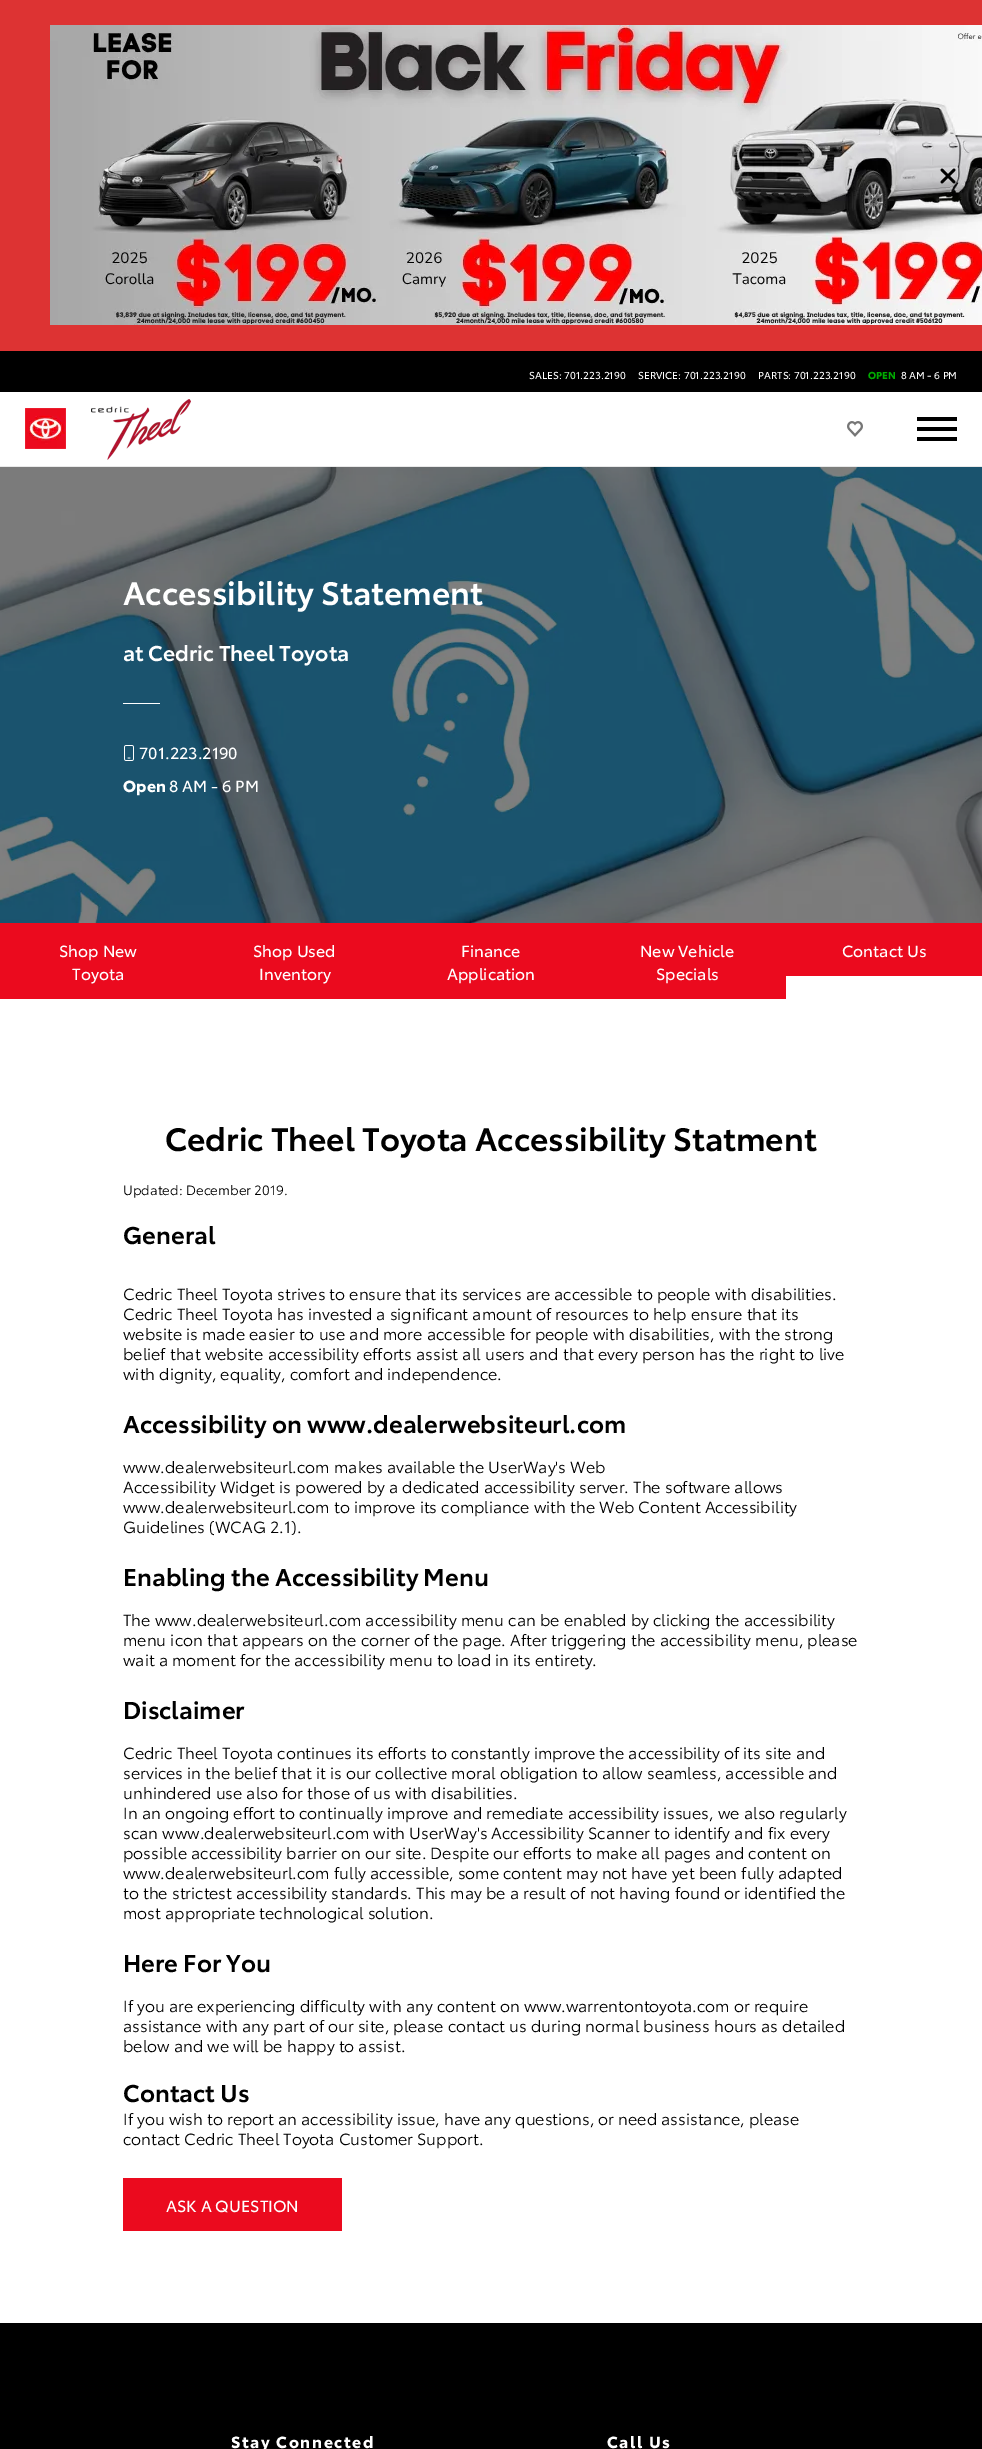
%!PS-Adobe-3.0
%%BoundingBox: 0 0 982 2449
%%LanguageLevel: 3
%%Pages: 1
%%EndComments
%%BeginProlog
/setink { dup -16 bitshift 255 div exch dup -8 bitshift 255 and 255 div exch 255 and 255 div setrgbcolor } def
/usefont { [ exch dup neg 0 0 3 -1 roll 0 0 ] selectfont } def
/drawimage { 5 dict begin { /h /w /y /x /name } { exch def } forall
  gsave x y translate w h scale
  w h 8 [w 0 0 h 0 0] name (r) file false 3 colorimage grestore end } def
%%EndProlog
%%BeginSetup
<< /PageSize [982 2449] >> setpagedevice
%%EndSetup
%%Page: 1 1
0 2449 translate 1 -1 scale
4 setmiterlimit
16#FFFFFF setink
0 0 982 2449 rectfill
16#DD3333 setink
0 0 982 351 rectfill
(img1.raw) 50 25 932 300 drawimage
(img2.raw) 940 168 16 16 drawimage
16#000000 setink
0 351 982 41 rectfill
/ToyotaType-Regular 10 usefont
16#FFFFFF setink
[
    [(SALES: 701.223.2190) 529 379]
    [(SERVICE: 701.223.2190) 638 379]
    [(PARTS: 701.223.2190) 758 379]
] { aload pop moveto show } forall
/ToyotaType-Bold 10 usefont
16#00A900 setink
868 379 moveto (OPEN) show
/ToyotaType-Regular 10 usefont
16#FFFFFF setink
901 379 moveto (8 AM - 6 PM) show
16#E9E9E9 setink
0 466 982 1 rectfill
(img3.raw) 25 408 41 41 drawimage
(img4.raw) 91 399 100 61 drawimage
(img5.raw) 847 421 16 16 drawimage
[
    [917 417 40 4 16#000000]
    [917 427 40 4 16#000000]
    [917 437 40 4 16#000000]
] { aload pop setink rectfill } forall
(img6.raw) 0 467 982 456 drawimage
/ToyotaType-SemiBold 32 usefont
16#FFFFFF setink
123 605 moveto (Accessibility Statement) show
/ToyotaType-SemiBold 21.25 usefont
123 661 moveto (at Cedric Theel Toyota) show
123 703 37 1 rectfill
(img7.raw) 124 745 10 16 drawimage
/ToyotaType-Regular 16 usefont
139 759 moveto (701.223.2190) show
/ToyotaType-Bold 16 usefont
123 792 moveto (Open) show
/ToyotaType-Regular 16 usefont
169 792 moveto (8 AM - 6 PM) show
16#EB0A1E setink
0 923 786 76 rectfill
16#FFFFFF setink
[
    [(Shop New) 59 957]
    [(Toyota) 72 980]
    [(Shop Used) 253 957]
    [(Inventory) 259 980]
    [(Finance) 461 957]
    [(Application) 447 980]
    [(New Vehicle) 640 957]
    [(Specials) 656 980]
] { aload pop moveto show } forall
16#EB0A1E setink
786 923 196 53 rectfill
16#FFFFFF setink
842 957 moveto (Contact Us) show
/ToyotaType-SemiBold 32 usefont
16#000000 setink
165 1151 moveto (Cedric Theel Toyota Accessibility Statment) show
/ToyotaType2-Regular 13.25 usefont
123 1195 moveto (Updated: December 2019.) show
/ToyotaType-SemiBold 24 usefont
123 1244 moveto (General) show
/ToyotaType2-Regular 16 usefont
[
    [(Cedric Theel Toyota strives to ensure that its services are accessible to people with disabilities.) 123 1300]
    [(Cedric Theel Toyota has invested a significant amount of resources to help ensure that its) 123 1320]
    [(website is made easier to use and more accessible for people with disabilities, with the strong) 123 1340]
    [(belief that website accessibility efforts assist all users and that every person has the right to live) 123 1360]
    [(with dignity, equality, comfort and independence.) 123 1380]
] { aload pop moveto show } forall
/ToyotaType-SemiBold 24 usefont
123 1433 moveto (Accessibility on www.dealerwebsiteurl.com) show
/ToyotaType2-Regular 16 usefont
[
    [(www.dealerwebsiteurl.com makes available the UserWay's Web) 123 1473]
    [(Accessibility Widget is powered by a dedicated accessibility server. The software allows) 123 1493]
    [(www.dealerwebsiteurl.com to improve its compliance with the Web Content Accessibility) 123 1513]
    [(Guidelines \(WCAG 2.1\).) 123 1533]
] { aload pop moveto show } forall
/ToyotaType-SemiBold 24 usefont
123 1586 moveto (Enabling the Accessibility Menu) show
/ToyotaType2-Regular 16 usefont
[
    [(The www.dealerwebsiteurl.com accessibility menu can be enabled by clicking the accessibility) 123 1626]
    [(menu icon that appears on the corner of the page. After triggering the accessibility menu, please) 123 1646]
    [(wait a moment for the accessibility menu to load in its entirety.) 123 1666]
] { aload pop moveto show } forall
/ToyotaType-SemiBold 24 usefont
123 1719 moveto (Disclaimer) show
/ToyotaType2-Regular 16 usefont
[
    [(Cedric Theel Toyota continues its efforts to constantly improve the accessibility of its site and) 123 1759]
    [(services in the belief that it is our collective moral obligation to allow seamless, accessible and) 123 1779]
    [(unhindered use also for those of us with disabilities.) 123 1799]
    [(In an ongoing effort to continually improve and remediate accessibility issues, we also regularly) 123 1819]
    [(scan www.dealerwebsiteurl.com with UserWay's Accessibility Scanner to identify and fix every) 123 1839]
    [(possible accessibility barrier on our site. Despite our efforts to make all pages and content on) 123 1859]
    [(www.dealerwebsiteurl.com fully accessible, some content may not have yet been fully adapted) 123 1879]
    [(to the strictest accessibility standards. This may be a result of not having found or identified the) 123 1899]
    [(most appropriate technological solution.) 123 1919]
] { aload pop moveto show } forall
/ToyotaType-SemiBold 24 usefont
123 1972 moveto (Here For You) show
/ToyotaType2-Regular 16 usefont
[
    [(If you are experiencing difficulty with any content on www.warrentontoyota.com or require) 123 2012]
    [(assistance with any part of our site, please contact us during normal business hours as detailed) 123 2032]
    [(below and we will be happy to assist.) 123 2052]
] { aload pop moveto show } forall
/ToyotaType-SemiBold 24 usefont
123 2102 moveto (Contact Us) show
/ToyotaType2-Regular 16 usefont
123 2125 moveto (If you wish to report an accessibility issue, have any questions, or need assistance, please) show
123 2145 moveto (contact Cedric Theel Toyota Customer Support.) show
16#EB0A1E setink
123 2178 219 53 rectfill
/ToyotaType-Regular 16 usefont
16#FFFFFF setink
166 2212 moveto (ASK A QUESTION) show
16#000000 setink
0 2323 982 126 rectfill
/ToyotaType-Bold 16 usefont
16#FFFFFF setink
231 2448 moveto 1.6 0 (Stay Connected) ashow
607 2448 moveto 1.6 0 (Call Us) ashow
showpage
%%EOF
